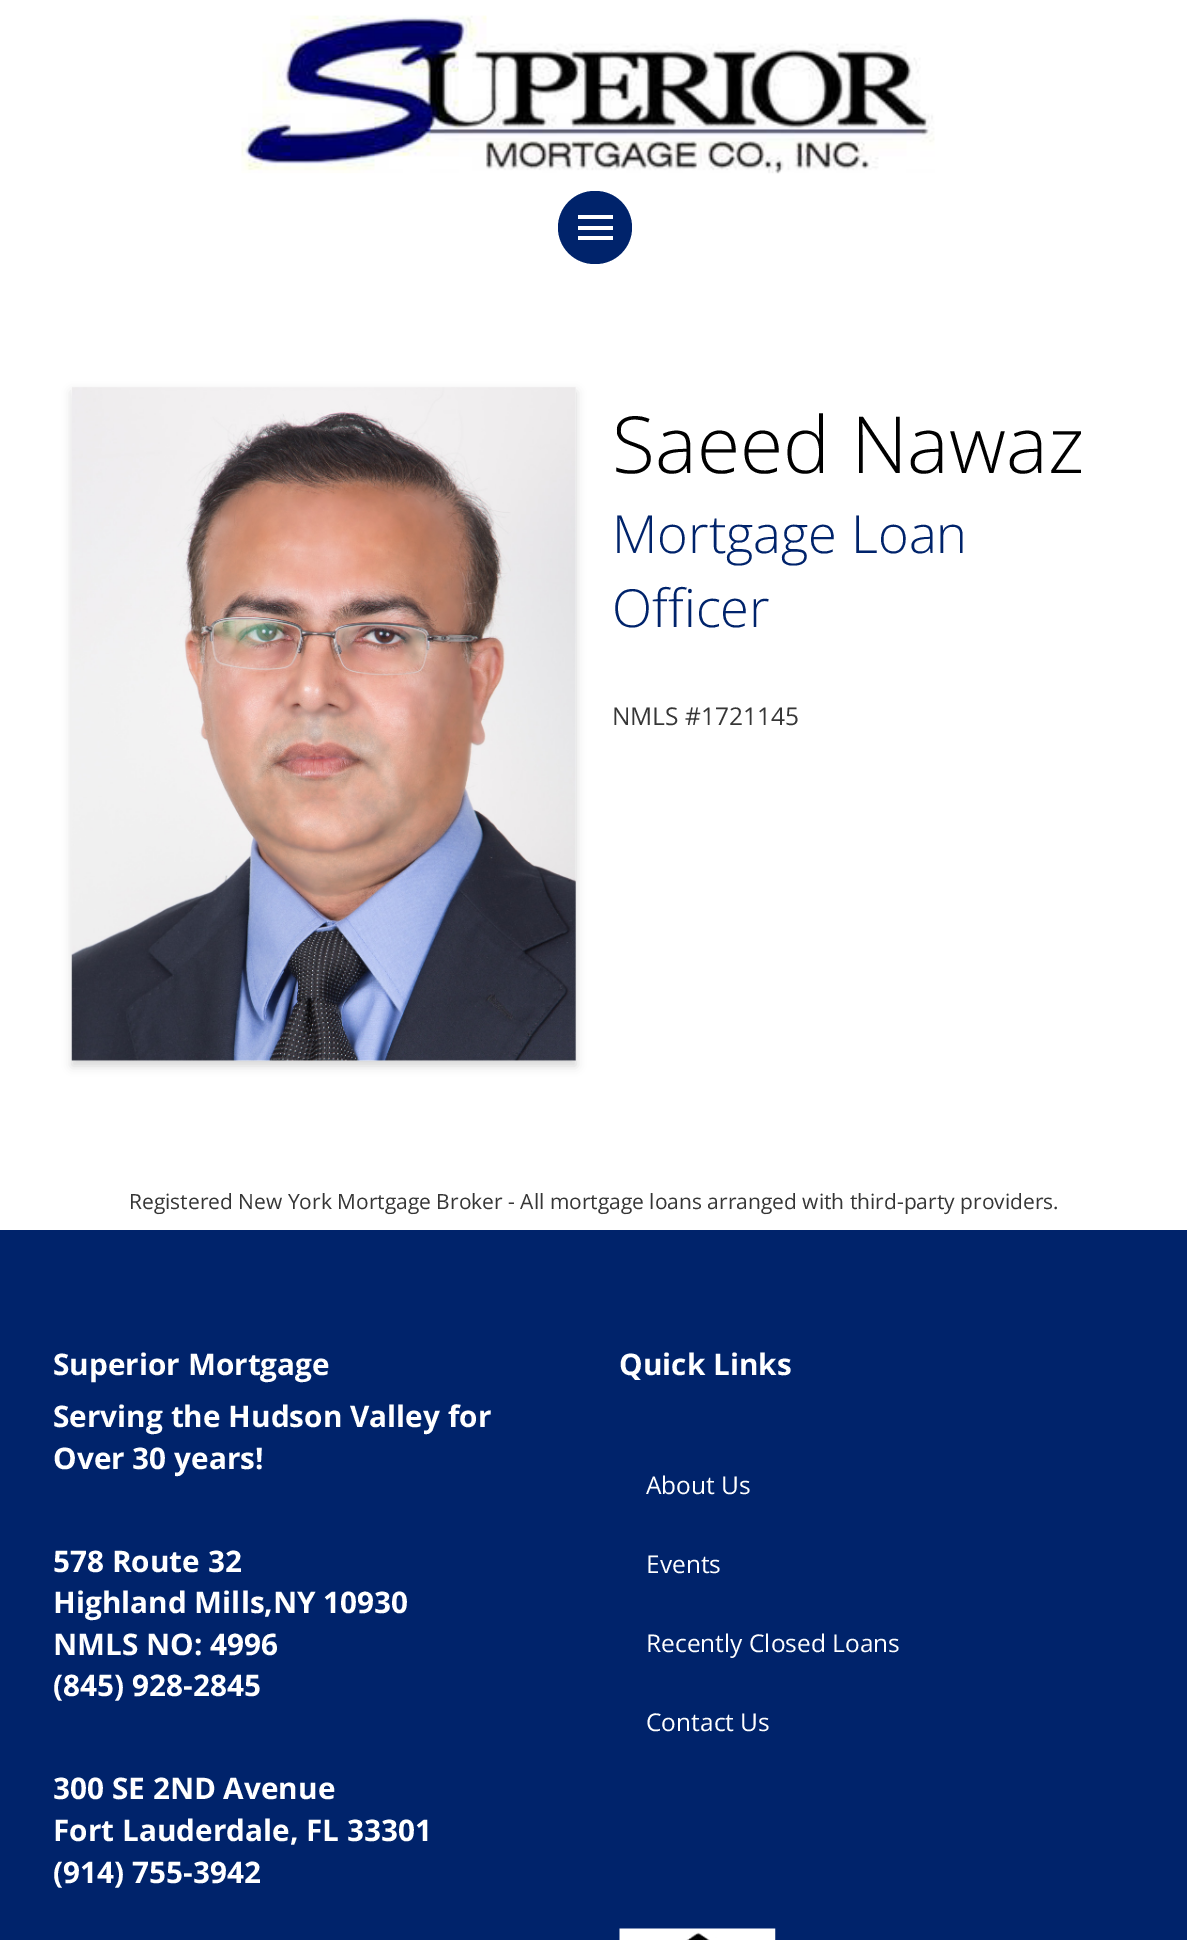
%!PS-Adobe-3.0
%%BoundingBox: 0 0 1187 1940
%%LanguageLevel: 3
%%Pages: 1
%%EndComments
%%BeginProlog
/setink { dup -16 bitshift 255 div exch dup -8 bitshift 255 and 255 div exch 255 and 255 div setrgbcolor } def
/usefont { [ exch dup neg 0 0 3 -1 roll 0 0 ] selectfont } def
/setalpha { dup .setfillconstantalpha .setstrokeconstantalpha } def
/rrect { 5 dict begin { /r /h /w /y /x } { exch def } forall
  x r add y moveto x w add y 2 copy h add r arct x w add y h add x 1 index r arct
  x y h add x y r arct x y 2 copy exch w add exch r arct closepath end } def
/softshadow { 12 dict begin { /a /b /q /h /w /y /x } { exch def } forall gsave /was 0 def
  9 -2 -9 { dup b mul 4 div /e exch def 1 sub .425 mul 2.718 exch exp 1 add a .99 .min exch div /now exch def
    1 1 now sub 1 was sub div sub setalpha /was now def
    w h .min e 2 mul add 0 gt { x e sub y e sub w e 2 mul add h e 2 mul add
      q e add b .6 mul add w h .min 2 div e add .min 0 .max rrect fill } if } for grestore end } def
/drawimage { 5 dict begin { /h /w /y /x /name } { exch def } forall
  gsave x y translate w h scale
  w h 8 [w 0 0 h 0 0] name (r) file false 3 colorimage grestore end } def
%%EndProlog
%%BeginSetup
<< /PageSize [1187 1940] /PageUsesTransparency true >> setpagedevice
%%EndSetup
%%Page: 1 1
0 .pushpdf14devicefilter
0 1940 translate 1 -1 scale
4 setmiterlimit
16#FFFFFF setink
0 0 1187 1940 rectfill
(img1.raw) 241 15 694 159 drawimage
16#00236B setink
558 191 74 73 36.5 rrect fill
[
    [578 215 35 4 16#FFFFFF]
    [578 226 35 4 16#FFFFFF]
    [578 236 35 4 16#FFFFFF]
] { aload pop setink rectfill } forall
16#000000 setink
72 392 504 674 0 5 0.16 softshadow
(img2.raw) 71 387 505 674 drawimage
/OpenSans-Light 78.75 usefont
612 473 moveto (Saeed Nawaz) show
/OpenSans-Light 52.5 usefont
16#00236B setink
612 553 moveto (Mortgage Loan) show
612 627 moveto (Officer) show
/OpenSans-Regular 24.5 usefont
16#363636 setink
612 725 moveto (NMLS #1721145) show
/OpenSans-Regular 21 usefont
129 1209 moveto (Registered New York Mortgage Broker - All mortgage loans arranged with third-party providers.) show
16#00236B setink
0 1230 1187 710 rectfill
/OpenSans-Bold 29.75 usefont
16#FFFFFF setink
[
    [(Superior Mortgage) 53 1375]
    [(Serving the Hudson Valley for) 53 1427]
    [(Over 30 years!) 53 1469]
    [(578 Route 32) 53 1572]
    [(Highland Mills,NY 10930) 53 1613]
    [(NMLS NO: 4996) 53 1655]
    [(\(845\) 928-2845) 53 1696]
    [(300 SE 2ND Avenue) 53 1799]
    [(Fort Lauderdale, FL 33301) 53 1841]
    [(\(914\) 755-3942) 53 1883]
    [(Quick Links) 619 1375]
] { aload pop moveto show } forall
/OpenSans-Regular 24.5 usefont
[
    [(About Us) 646 1494]
    [(Events) 646 1573]
    [(Recently Closed Loans) 646 1652]
    [(Contact Us) 646 1731]
] { aload pop moveto show } forall
(img3.raw) 619 1928 157 12 drawimage
.poppdf14devicefilter showpage
%%EOF
